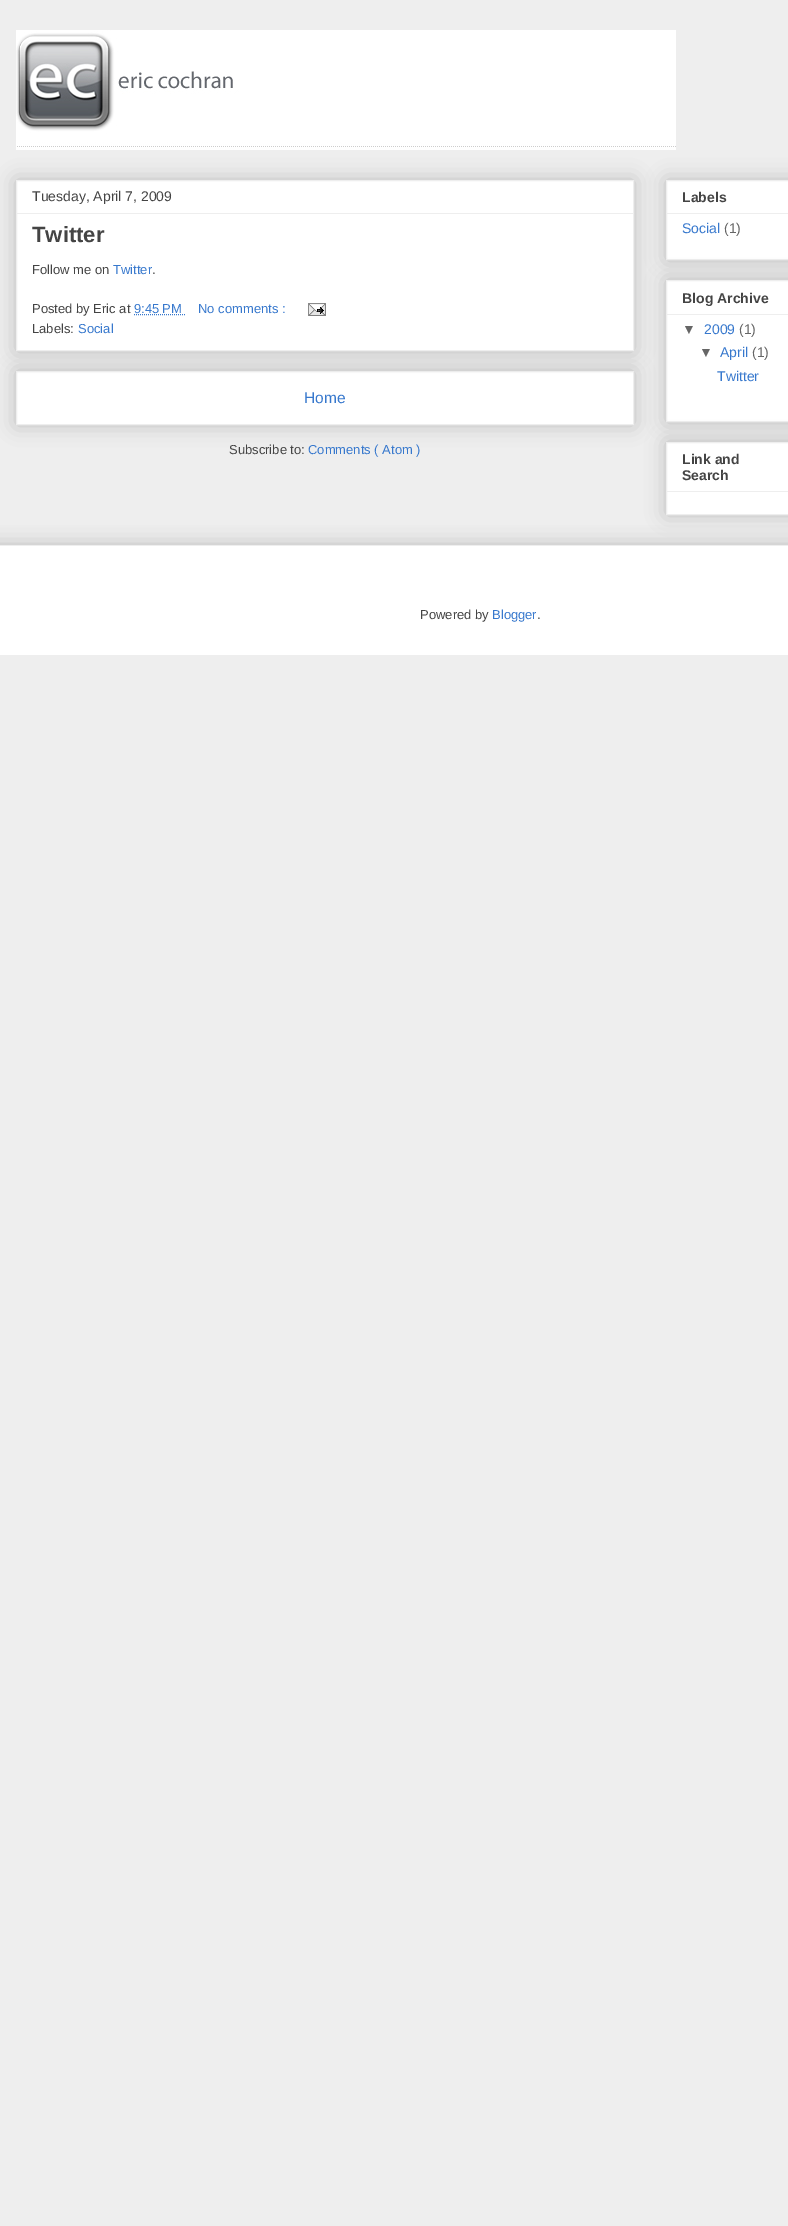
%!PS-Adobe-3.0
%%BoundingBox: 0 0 788 2226
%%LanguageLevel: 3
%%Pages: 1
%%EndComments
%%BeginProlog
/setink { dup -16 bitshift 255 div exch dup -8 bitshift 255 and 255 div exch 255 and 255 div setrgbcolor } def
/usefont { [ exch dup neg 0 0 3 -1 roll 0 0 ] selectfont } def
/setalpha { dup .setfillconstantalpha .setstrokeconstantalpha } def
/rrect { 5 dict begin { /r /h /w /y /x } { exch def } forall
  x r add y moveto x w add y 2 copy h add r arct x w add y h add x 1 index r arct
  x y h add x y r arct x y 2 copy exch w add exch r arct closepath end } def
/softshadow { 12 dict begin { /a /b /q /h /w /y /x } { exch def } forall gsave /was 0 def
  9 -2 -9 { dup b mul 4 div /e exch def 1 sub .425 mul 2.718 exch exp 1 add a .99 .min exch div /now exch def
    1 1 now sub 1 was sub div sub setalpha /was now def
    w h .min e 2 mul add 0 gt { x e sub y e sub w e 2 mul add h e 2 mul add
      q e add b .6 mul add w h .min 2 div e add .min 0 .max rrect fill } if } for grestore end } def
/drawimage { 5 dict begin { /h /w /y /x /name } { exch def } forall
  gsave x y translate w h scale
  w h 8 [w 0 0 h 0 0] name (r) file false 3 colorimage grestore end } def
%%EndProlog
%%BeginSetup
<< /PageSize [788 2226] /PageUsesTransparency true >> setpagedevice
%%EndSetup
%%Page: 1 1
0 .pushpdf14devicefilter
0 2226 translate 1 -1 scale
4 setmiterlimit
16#EEEEEE setink
0 0 788 2226 rectfill
(img1.raw) 16 30 660 120 drawimage
16#000000 setink
16 371 618 54 0 10 0.2 softshadow
16#FFFFFF setink
16.5 371.5 moveto 633.5 371.5 lineto 633.5 424.5 lineto 16.5 424.5 lineto closepath gsave fill grestore
16#EEEEEE setink
stroke
16#000000 setink
16 180 618 171 0 10 0.2 softshadow
16#FFFFFF setink
16.5 180.5 moveto 633.5 180.5 lineto 633.5 350.5 lineto 16.5 350.5 lineto closepath gsave fill grestore
16#EEEEEE setink
stroke
/LiberationSans-Regular 14 usefont
16#444444 setink
32 201 moveto (Tuesday, April 7, 2009) show
16#EEEEEE setink
17 213 616 1 rectfill
/LiberationSans-Bold 22 usefont
16#444444 setink
32 242 moveto (Twitter) show
/LiberationSans-Regular 13 usefont
32 274 moveto (Follow me on) show
16#3778CD setink
113 274 moveto (Twitter) show
16#444444 setink
152 274 moveto (.) show
32 313 moveto (Posted by Eric at) show
16#3778CD setink
134 313 moveto (9:45 PM) show
[1 1] 0 setdash
134 314.5 moveto 185 314.5 lineto stroke
198 313 moveto (No comments :) show
(img2.raw) 308 303 18 13 drawimage
16#444444 setink
32 333 moveto (Labels:) show
16#3778CD setink
78 333 moveto (Social) show
/LiberationSans-Regular 15.5 usefont
304 403 moveto (Home) show
/LiberationSans-Regular 13 usefont
16#444444 setink
229 454 moveto (Subscribe to:) show
16#3778CD setink
308 454 moveto (Comments \( Atom \)) show
16#000000 setink
666 180 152 80 0 10 0.2 softshadow
16#FFFFFF setink
666.5 180.5 moveto 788.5 180.5 lineto 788.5 259.5 lineto 666.5 259.5 lineto closepath gsave fill grestore
16#EEEEEE setink
[] 0 setdash
stroke
/LiberationSans-Bold 14 usefont
16#444444 setink
682 202 moveto (Labels) show
16#EEEEEE setink
667 213 121 1 rectfill
/LiberationSans-Regular 14 usefont
16#3778CD setink
682 233 moveto (Social) show
16#666666 setink
724 233 moveto (\(1\)) show
16#000000 setink
666 280 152 142 0 10 0.2 softshadow
16#FFFFFF setink
666.5 280.5 moveto 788.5 280.5 lineto 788.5 421.5 lineto 666.5 421.5 lineto closepath gsave fill grestore
16#EEEEEE setink
stroke
/LiberationSans-Bold 14 usefont
16#444444 setink
682 303 moveto (Blog Archive) show
16#EEEEEE setink
667 314 121 1 rectfill
/LiberationSans-Regular 14 usefont
16#666666 setink
682 334 moveto (▼) show
16#3778CD setink
704 334 moveto (2009) show
16#666666 setink
739 334 moveto (\(1\)) show
699 357 moveto (▼) show
16#3778CD setink
720 357 moveto (April) show
16#666666 setink
752 357 moveto (\(1\)) show
16#3778CD setink
717 381 moveto (Twitter) show
16#000000 setink
666 442 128 73 0 10 0.2 softshadow
16#FFFFFF setink
666.5 442.5 moveto 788.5 442.5 lineto 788.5 514.5 lineto 666.5 514.5 lineto closepath gsave fill grestore
16#EEEEEE setink
stroke
/LiberationSans-Bold 14 usefont
16#444444 setink
682 464 moveto (Link and) show
682 480 moveto (Search) show
16#EEEEEE setink
667 491 121 1 rectfill
gsave
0 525 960 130 rectclip
16#000000 setink
-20 545 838 110 0 10 0.2 softshadow
grestore
16#FFFFFF setink
0 546 788 109 rectfill
16#EEEEEE setink
0 545 788 1 rectfill
/LiberationSans-Regular 13 usefont
16#444444 setink
420 619 moveto (Powered by) show
16#3778CD setink
492 619 moveto (Blogger) show
16#444444 setink
537 619 moveto (.) show
.poppdf14devicefilter showpage
%%EOF
